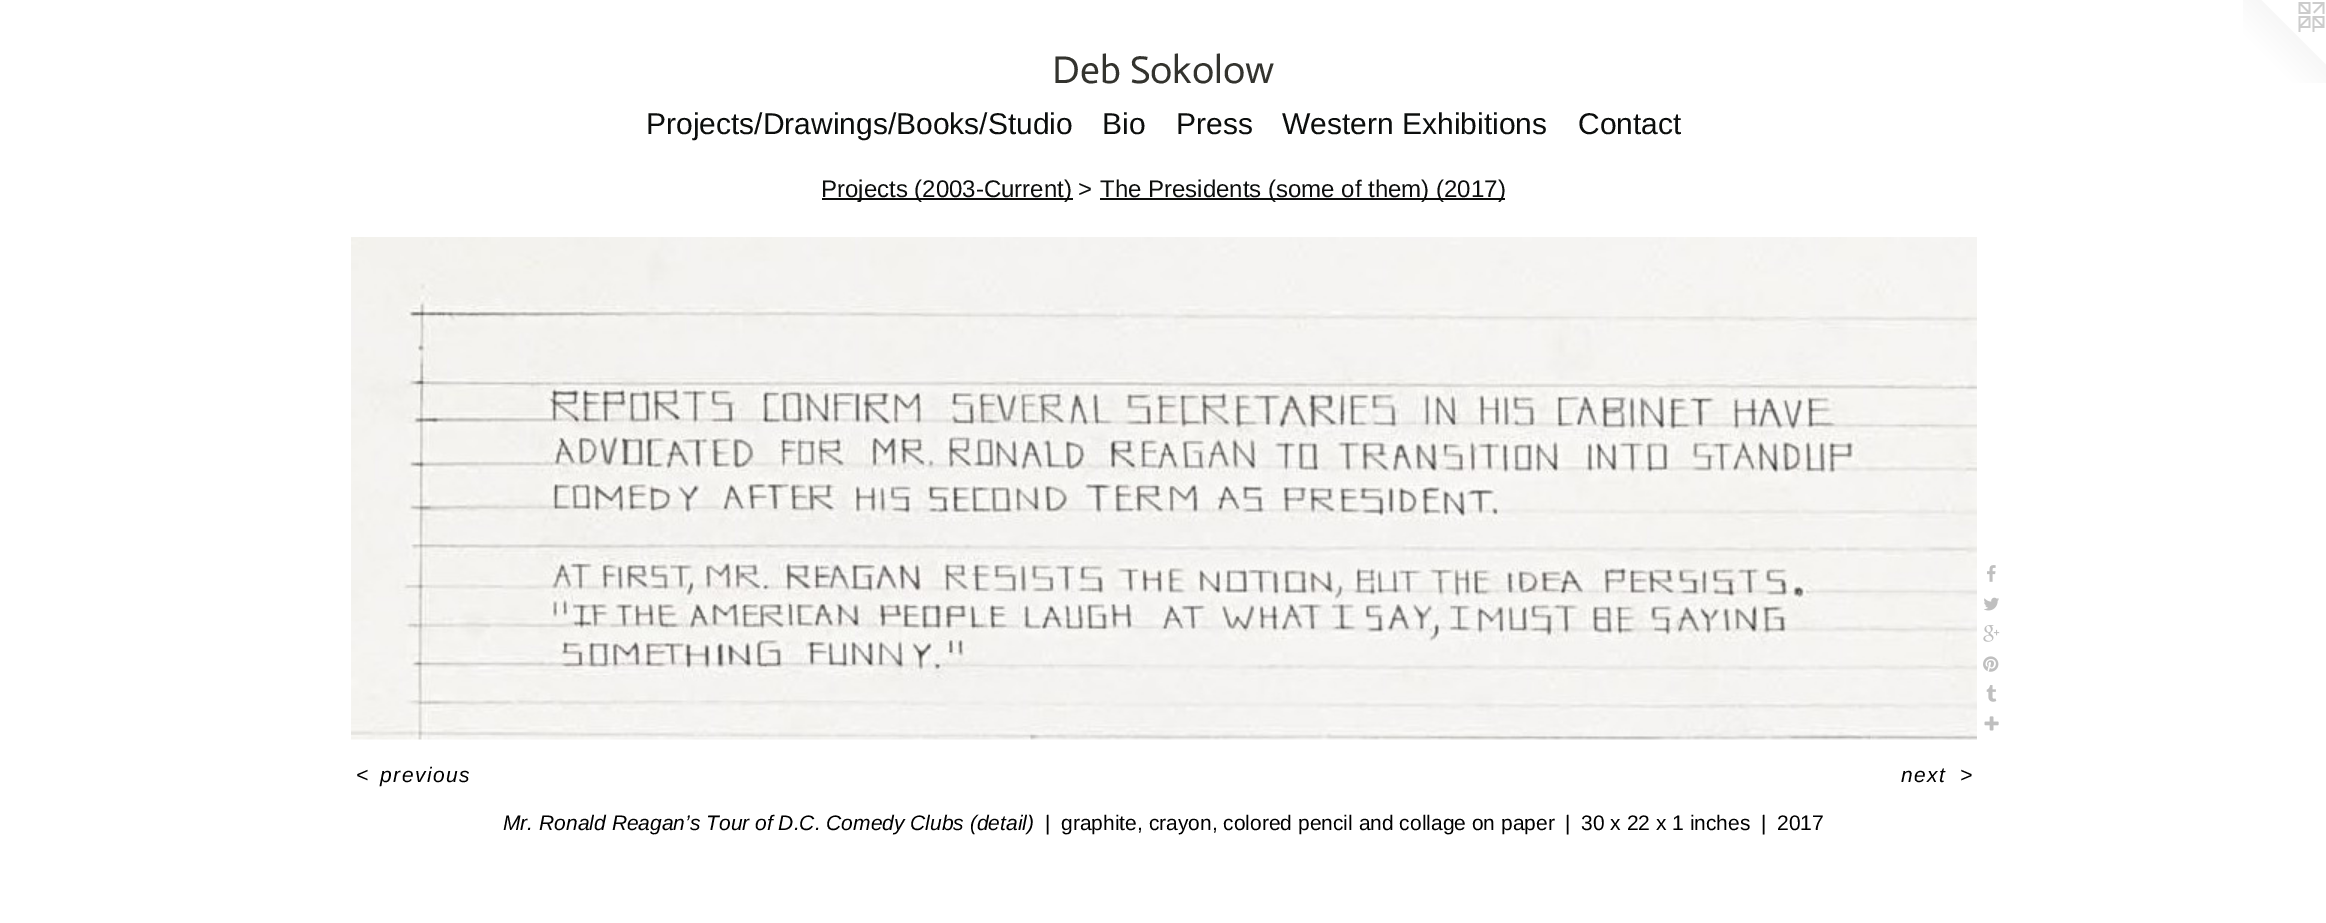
%!PS-Adobe-3.0
%%BoundingBox: 0 0 2326 923
%%LanguageLevel: 3
%%Pages: 1
%%EndComments
%%BeginProlog
/setink { dup -16 bitshift 255 div exch dup -8 bitshift 255 and 255 div exch 255 and 255 div setrgbcolor } def
/usefont { [ exch dup neg 0 0 3 -1 roll 0 0 ] selectfont } def
/drawimage { 5 dict begin { /h /w /y /x /name } { exch def } forall
  gsave x y translate w h scale
  w h 8 [w 0 0 h 0 0] name (r) file false 3 colorimage grestore end } def
%%EndProlog
%%BeginSetup
<< /PageSize [2326 923] >> setpagedevice
%%EndSetup
%%Page: 1 1
0 923 translate 1 -1 scale
4 setmiterlimit
16#FFFFFF setink
0 0 2326 923 rectfill
/Actor-Regular 39 usefont
16#33332E setink
1052 83 moveto (Deb Sokolow) show
(img1.raw) 2243 0 83 83 drawimage
/LiberationSans-Regular 30 usefont
16#0C0E0D setink
[
    [(Projects/Drawings/Books/Studio) 646 134]
    [(Bio) 1102 134]
    [(Press) 1176 134]
    [(Western Exhibitions) 1282 134]
    [(Contact) 1578 134]
] { aload pop moveto show } forall
16#0D0E0C setink
822 198 251 2 rectfill
/LiberationSans-Regular 24 usefont
16#0C0E0D setink
821 197 moveto (Projects \(2003-Current\) >) show
16#0D0E0C setink
1100 198 405 2 rectfill
16#0C0E0D setink
1100 197 moveto (The Presidents \(some of them\) \(2017\)) show
(img2.raw) 351 237 1626 503 drawimage
(img3.raw) 1987 565 9 17 drawimage
(img4.raw) 1984 597 15 14 drawimage
(img5.raw) 1983 625 17 17 drawimage
(img6.raw) 1983 656 16 16 drawimage
(img7.raw) 1986 685 11 17 drawimage
(img8.raw) 1984 716 15 15 drawimage
/LiberationSans-Italic 21 usefont
16#000000 setink
356 782 moveto 1.5 0 (<) ashow
380 782 moveto 1.5 0 (previous) ashow
1901 782 moveto 1.5 0 (next) ashow
1960 782 moveto 1.5 0 (>) ashow
503 830 moveto (Mr. Ronald Reagan’s Tour of D.C. Comedy Clubs \(detail\)) show
/LiberationSans-Regular 21 usefont
[
    [(|) 1045 830]
    [(graphite, crayon, colored pencil and collage on paper) 1061 830]
    [(|) 1565 830]
    [(30 x 22 x 1 inches) 1581 830]
    [(|) 1761 830]
    [(2017) 1777 830]
] { aload pop moveto show } forall
showpage
%%EOF
